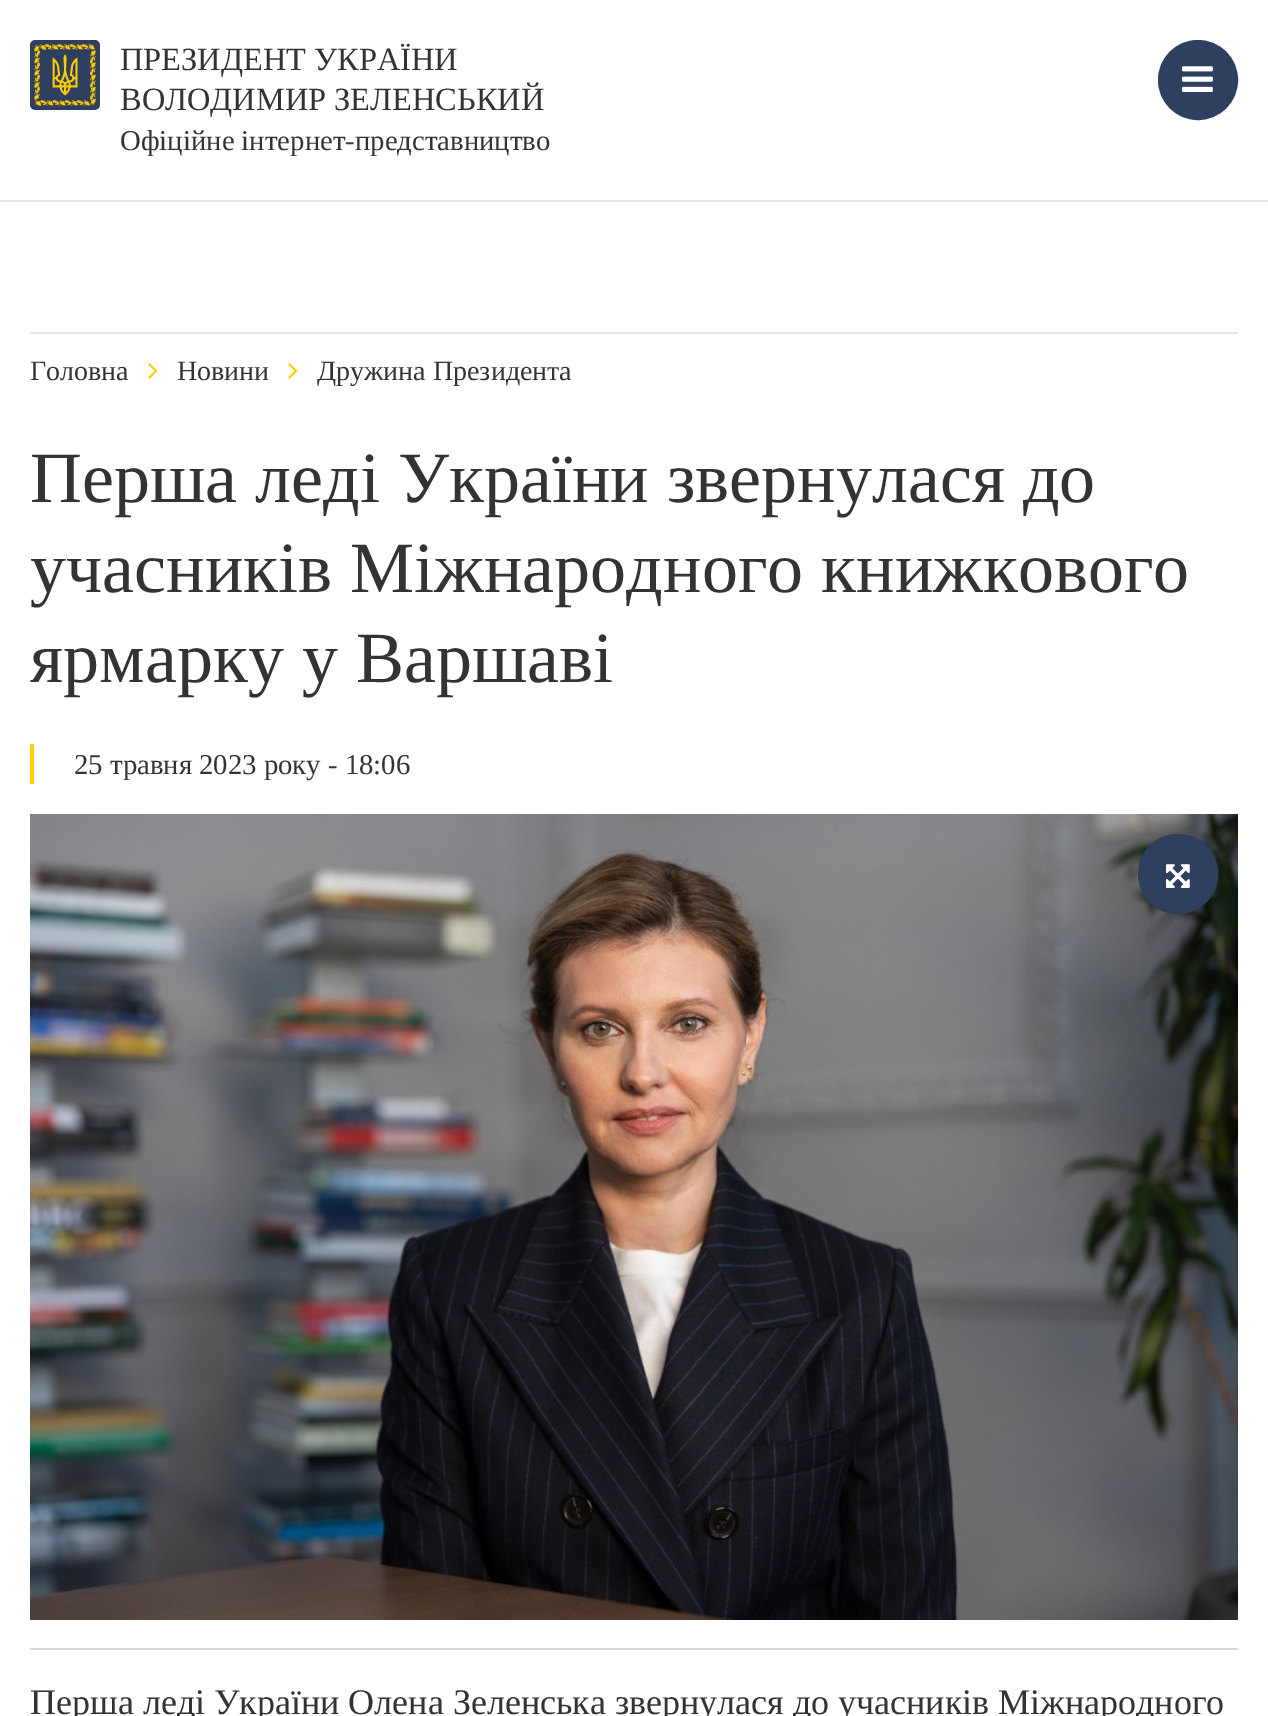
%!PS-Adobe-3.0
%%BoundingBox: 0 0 1268 1716
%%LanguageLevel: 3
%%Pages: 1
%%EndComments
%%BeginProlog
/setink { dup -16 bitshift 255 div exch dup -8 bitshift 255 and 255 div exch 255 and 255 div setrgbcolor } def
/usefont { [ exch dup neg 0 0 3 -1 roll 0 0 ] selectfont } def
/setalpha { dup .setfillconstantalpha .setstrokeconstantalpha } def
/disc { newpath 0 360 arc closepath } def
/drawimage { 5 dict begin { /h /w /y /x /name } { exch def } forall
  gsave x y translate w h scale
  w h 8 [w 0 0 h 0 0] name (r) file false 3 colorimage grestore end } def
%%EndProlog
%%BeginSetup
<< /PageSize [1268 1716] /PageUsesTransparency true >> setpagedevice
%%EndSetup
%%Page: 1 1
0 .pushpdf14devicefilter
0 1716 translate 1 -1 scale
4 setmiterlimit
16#FFFFFF setink
0 0 1268 1716 rectfill
16#E6E6E6 setink
0 200 1268 2 rectfill
(img1.raw) 30 40 70 70 drawimage
/LiberationSerif-Regular 32.4 usefont
16#333333 setink
120 70 moveto (ПРЕЗИДЕНТ УКРАЇНИ) show
120 110 moveto (ВОЛОДИМИР ЗЕЛЕНСЬКИЙ) show
/LiberationSerif-Regular 28.75 usefont
120 150 moveto (Офіційне інтернет-представництво) show
16#2F3F60 setink
1198 80 38 disc gsave fill grestore
4 setlinewidth
stroke
(img2.raw) 1182 66 31 26 drawimage
16#E6E6E6 setink
30 332 1208 2 rectfill
/LiberationSerif-Regular 28 usefont
16#333333 setink
30 380 moveto (Головна) show
(img3.raw) 148 363 10 16 drawimage
177 380 moveto (Новини) show
(img3.raw) 288 363 10 16 drawimage
317 380 moveto (Дружина Президента) show
/LiberationSerif-Regular 72 usefont
[
    [(Перша леді України звернулася до) 30 502]
    [(учасників Міжнародного книжкового) 30 592]
    [(ярмарку у Варшаві) 30 682]
] { aload pop moveto show } forall
16#FFCC00 setink
30 744 4 40 rectfill
/LiberationSerif-Regular 28.75 usefont
16#333333 setink
74 774 moveto (25 травня 2023 року - 18:06) show
16#D6D6D6 setink
30 1648 1208 2 rectfill
(img4.raw) 30 814 1208 806 drawimage
16#2F3F60 setink
1178 874 40 disc fill
0.2 setalpha
16#333333 setink
1202 906 moveto 1188 917 1168 917 1154 906 curveto 1157 905 lineto 1169 914 1187 914 1199 905 curveto closepath fill
1 setalpha
(img5.raw) 1166 864 24 24 drawimage
/LiberationSerif-Regular 36 usefont
30 1714 moveto (Перша леді України Олена Зеленська звернулася до учасників Міжнародного) show
.poppdf14devicefilter showpage
%%EOF
